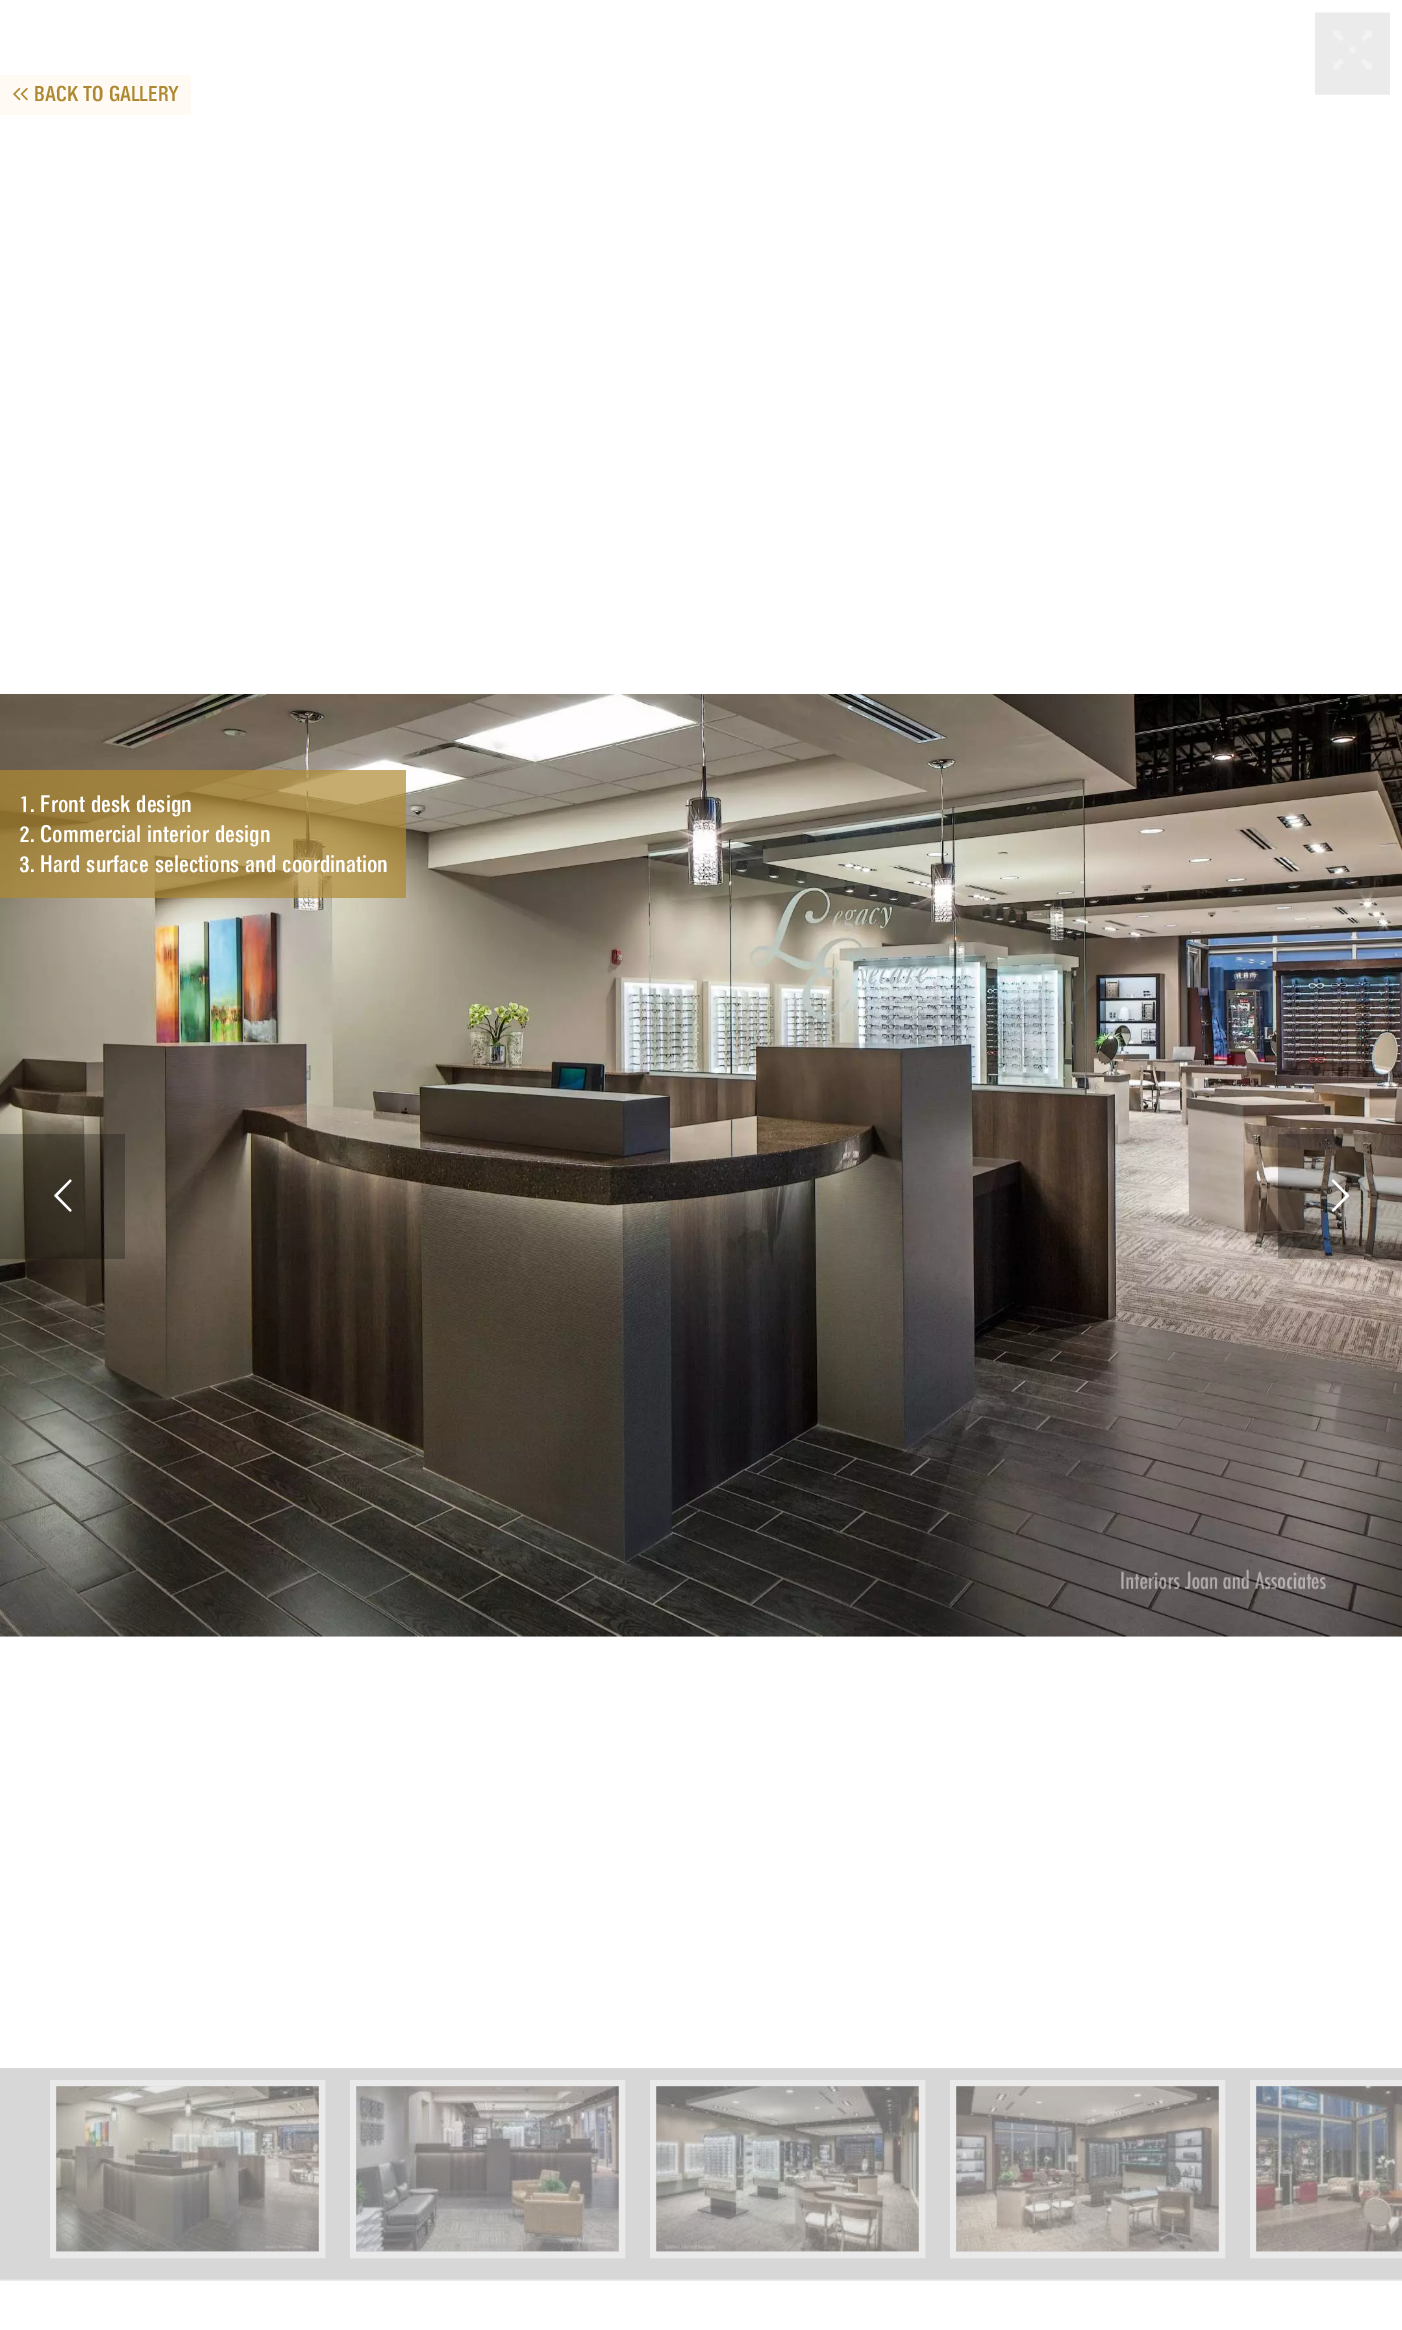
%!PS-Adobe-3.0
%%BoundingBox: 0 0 1402 2330
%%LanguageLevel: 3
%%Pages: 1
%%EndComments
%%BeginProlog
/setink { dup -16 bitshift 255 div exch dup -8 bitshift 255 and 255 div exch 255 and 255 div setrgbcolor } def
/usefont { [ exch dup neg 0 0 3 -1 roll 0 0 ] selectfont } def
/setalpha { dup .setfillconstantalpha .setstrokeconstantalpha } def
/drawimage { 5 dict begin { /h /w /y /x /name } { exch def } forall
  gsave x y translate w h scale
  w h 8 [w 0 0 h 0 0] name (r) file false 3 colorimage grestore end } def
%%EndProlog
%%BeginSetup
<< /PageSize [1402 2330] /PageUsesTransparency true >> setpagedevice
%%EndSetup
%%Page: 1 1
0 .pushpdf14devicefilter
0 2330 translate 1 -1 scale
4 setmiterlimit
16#FFFFFF setink
0 0 1402 2330 rectfill
16#FFFAF4 setink
0 75 191 40 rectfill
(img1.raw) 13 87 8 14 drawimage
(img2.raw) 20 87 8 14 drawimage
/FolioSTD-Regular 22.5 usefont
16#AE8932 setink
34 101 moveto (BACK TO GALLERY) show
(img3.raw) 1315 12 75 83 drawimage
(img4.raw) 1333 30 39 40 drawimage
(img5.raw) 0 694 1402 943 drawimage
0.7 setalpha
0 770 406 128 rectfill
/FolioSTD-Regular 25 usefont
1 setalpha
16#FFFFFF setink
[
    [(1. Front desk design) 19 812]
    [(2. Commercial interior design) 19 842]
    [(3. Hard surface selections and coordination) 19 872]
] { aload pop moveto show } forall
0.25 setalpha
16#000000 setink
0 1134 125 125 rectfill
1 setalpha
(img6.raw) 54 1179 18 33 drawimage
0.25 setalpha
1278 1134 124 125 rectfill
1 setalpha
(img7.raw) 1331 1179 19 33 drawimage
(img8.raw) 0 2068 1402 213 drawimage
16#EAEAEA setink
6 setlinewidth
53 2083 269 172 rectstroke
(img9.raw) 56 2086 263 166 drawimage
353 2083 269 172 rectstroke
(img10.raw) 356 2086 263 166 drawimage
653 2083 269 172 rectstroke
(img11.raw) 656 2086 263 166 drawimage
953 2083 269 172 rectstroke
(img12.raw) 956 2086 263 166 drawimage
1253 2083 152 172 rectstroke
(img13.raw) 1256 2086 146 166 drawimage
.poppdf14devicefilter showpage
%%EOF
